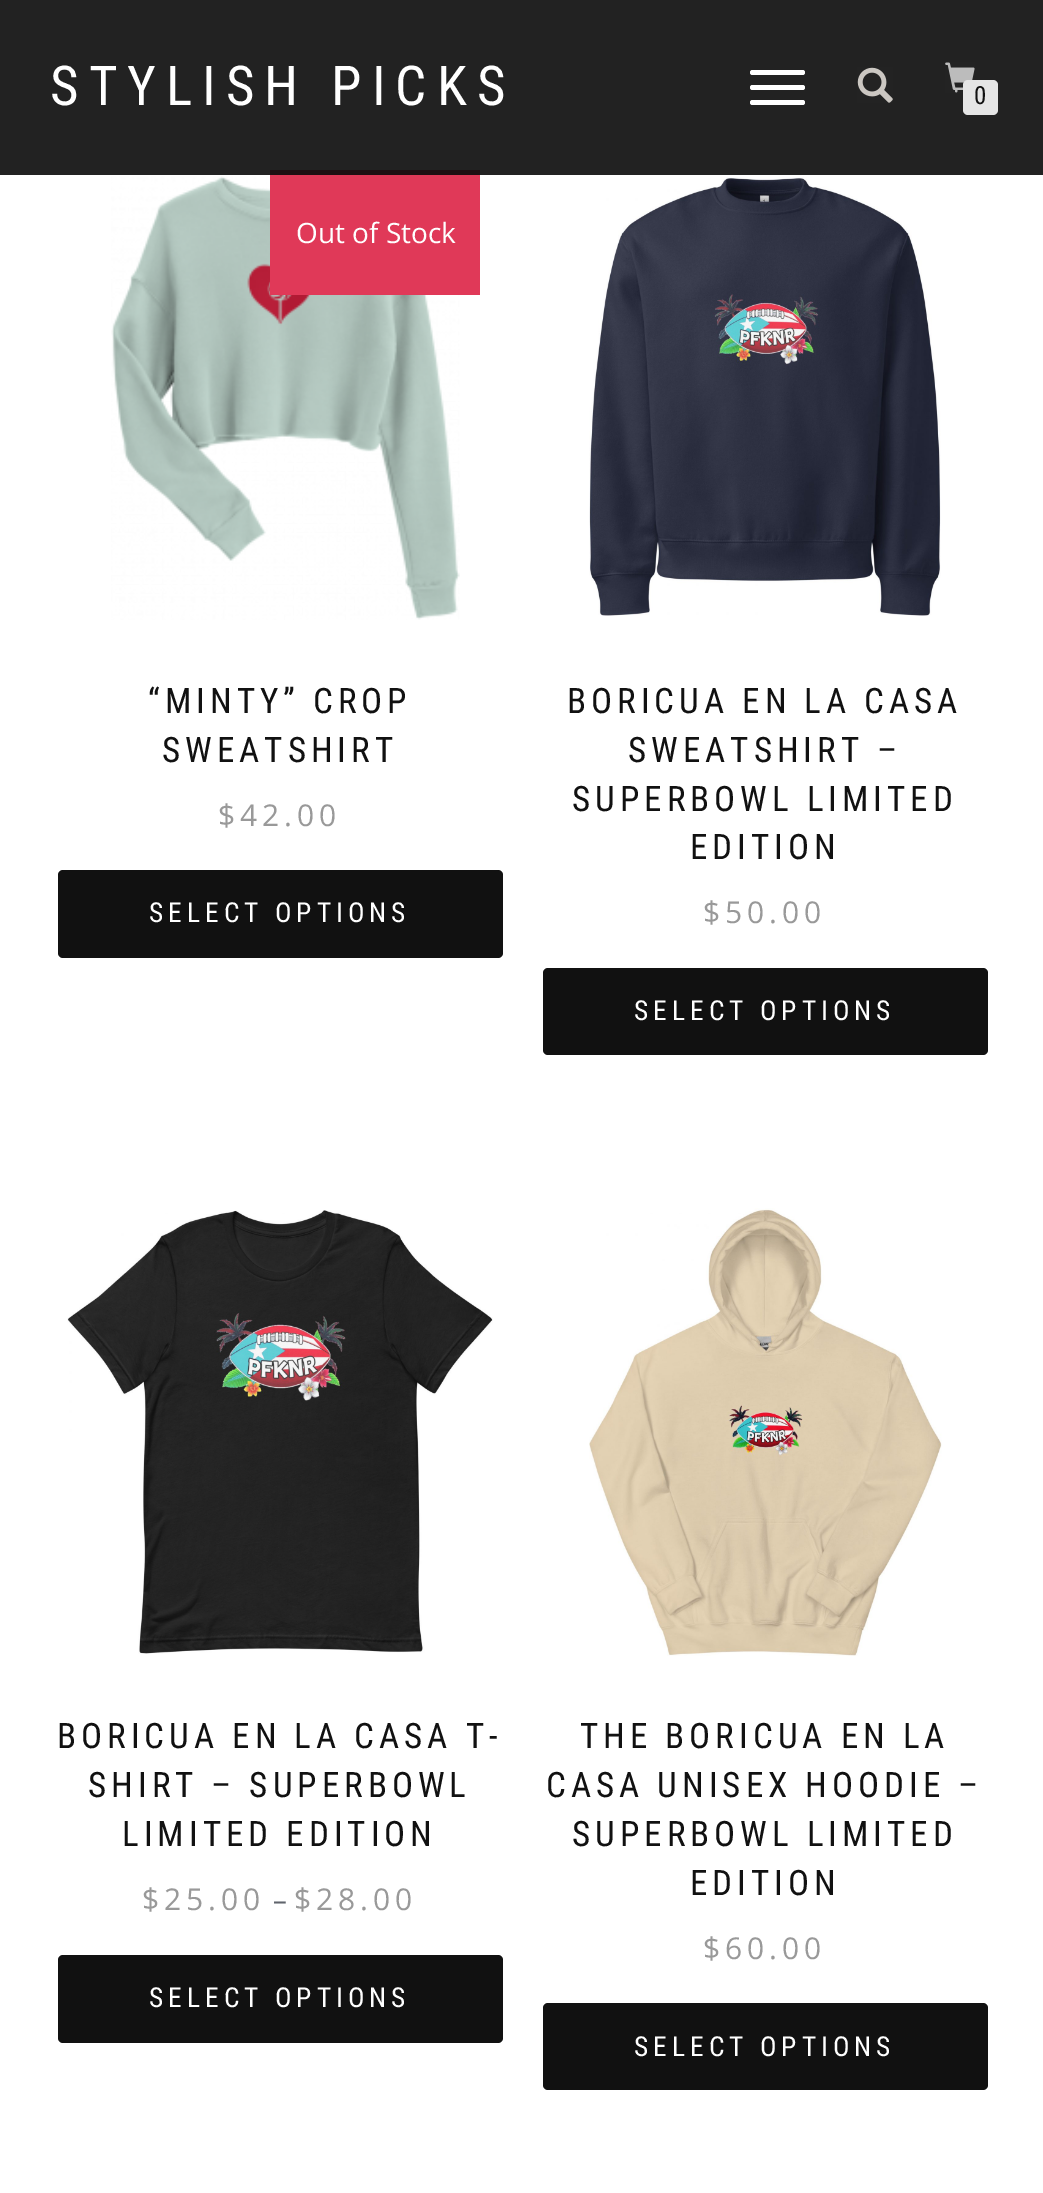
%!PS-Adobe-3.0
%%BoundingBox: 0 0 1043 2193
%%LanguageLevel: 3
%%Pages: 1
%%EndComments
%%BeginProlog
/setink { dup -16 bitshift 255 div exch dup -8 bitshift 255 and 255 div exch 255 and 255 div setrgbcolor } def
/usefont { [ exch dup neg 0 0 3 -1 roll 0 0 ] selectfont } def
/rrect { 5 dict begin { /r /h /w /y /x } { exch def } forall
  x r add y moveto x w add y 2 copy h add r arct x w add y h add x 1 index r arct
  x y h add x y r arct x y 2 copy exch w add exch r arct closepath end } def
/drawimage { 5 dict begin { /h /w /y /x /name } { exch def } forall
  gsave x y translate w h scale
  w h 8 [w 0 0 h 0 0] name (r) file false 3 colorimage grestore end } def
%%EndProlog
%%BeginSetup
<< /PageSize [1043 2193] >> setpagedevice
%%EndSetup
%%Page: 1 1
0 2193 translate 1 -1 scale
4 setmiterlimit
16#FFFFFF setink
0 0 1043 2193 rectfill
16#222222 setink
0 0 1043 175 rectfill
/RobotoCondensed-Regular 55 usefont
16#FFFFFF setink
50 105 moveto 10 0 (STYLISH PICKS) ashow
750 70 55 5 2.5 rrect fill
750 85 55 5 2.5 rrect fill
750 100 55 5 2.5 rrect fill
(img1.raw) 857 67 36 36 drawimage
(img2.raw) 945 62 30 31 drawimage
16#E5E5E5 setink
963 80 35 35 5 rrect fill
/RobotoCondensed-Regular 25 usefont
16#111111 setink
974 104 moveto (0) show
(img3.raw) 111 176 349 444 drawimage
16#E03958 setink
270 175 210 120 rectfill
16#1F0F12 setink
270 170 210 5 rectfill
/OpenSans-Regular 28 usefont
16#FFFFFF setink
296 243 moveto (Out of Stock) show
/RobotoCondensed-Regular 35 usefont
16#111111 setink
148 713 moveto 5 0 (“MINTY” CROP) ashow
162 762 moveto 5 0 (SWEATSHIRT) ashow
/OpenSans-Regular 30 usefont
16#999999 setink
218 826 moveto 5 0 ($42.00) ashow
16#111111 setink
58 870 445 88 5 rrect fill
/RobotoCondensed-Regular 27.5 usefont
16#FFFFFF setink
149 922 moveto 5 0 (SELECT OPTIONS) ashow
(img4.raw) 589 177 352 439 drawimage
/RobotoCondensed-Regular 35 usefont
16#111111 setink
567 713 moveto 5 0 (BORICUA EN LA CASA) ashow
628 762 moveto 5 0 (SWEATSHIRT –) ashow
572 811 moveto 5 0 (SUPERBOWL LIMITED) ashow
690 859 moveto 5 0 (EDITION) ashow
/OpenSans-Regular 30 usefont
16#999999 setink
703 923 moveto 5 0 ($50.00) ashow
16#111111 setink
543 968 445 87 5 rrect fill
/RobotoCondensed-Regular 27.5 usefont
16#FFFFFF setink
634 1020 moveto 5 0 (SELECT OPTIONS) ashow
(img5.raw) 67 1210 426 444 drawimage
/RobotoCondensed-Regular 35 usefont
16#111111 setink
57 1748 moveto 5 0 (BORICUA EN LA CASA T-) ashow
88 1797 moveto 5 0 (SHIRT – SUPERBOWL) ashow
122 1846 moveto 5 0 (LIMITED EDITION) ashow
/OpenSans-Regular 30 usefont
16#999999 setink
142 1910 moveto 5 0 ($25.00) ashow
/OpenSans-Regular 28 usefont
16#60646C setink
273 1910 moveto (–) show
/OpenSans-Regular 30 usefont
16#999999 setink
294 1910 moveto 5 0 ($28.00) ashow
16#111111 setink
58 1955 445 88 5 rrect fill
/RobotoCondensed-Regular 27.5 usefont
16#FFFFFF setink
149 2007 moveto 5 0 (SELECT OPTIONS) ashow
(img6.raw) 589 1208 353 448 drawimage
/RobotoCondensed-Regular 35 usefont
16#111111 setink
580 1748 moveto 5 0 (THE BORICUA EN LA) ashow
546 1797 moveto 5 0 (CASA UNISEX HOODIE –) ashow
572 1846 moveto 5 0 (SUPERBOWL LIMITED) ashow
690 1895 moveto 5 0 (EDITION) ashow
/OpenSans-Regular 30 usefont
16#999999 setink
703 1959 moveto 5 0 ($60.00) ashow
16#111111 setink
543 2003 445 87 5 rrect fill
/RobotoCondensed-Regular 27.5 usefont
16#FFFFFF setink
634 2056 moveto 5 0 (SELECT OPTIONS) ashow
showpage
%%EOF
